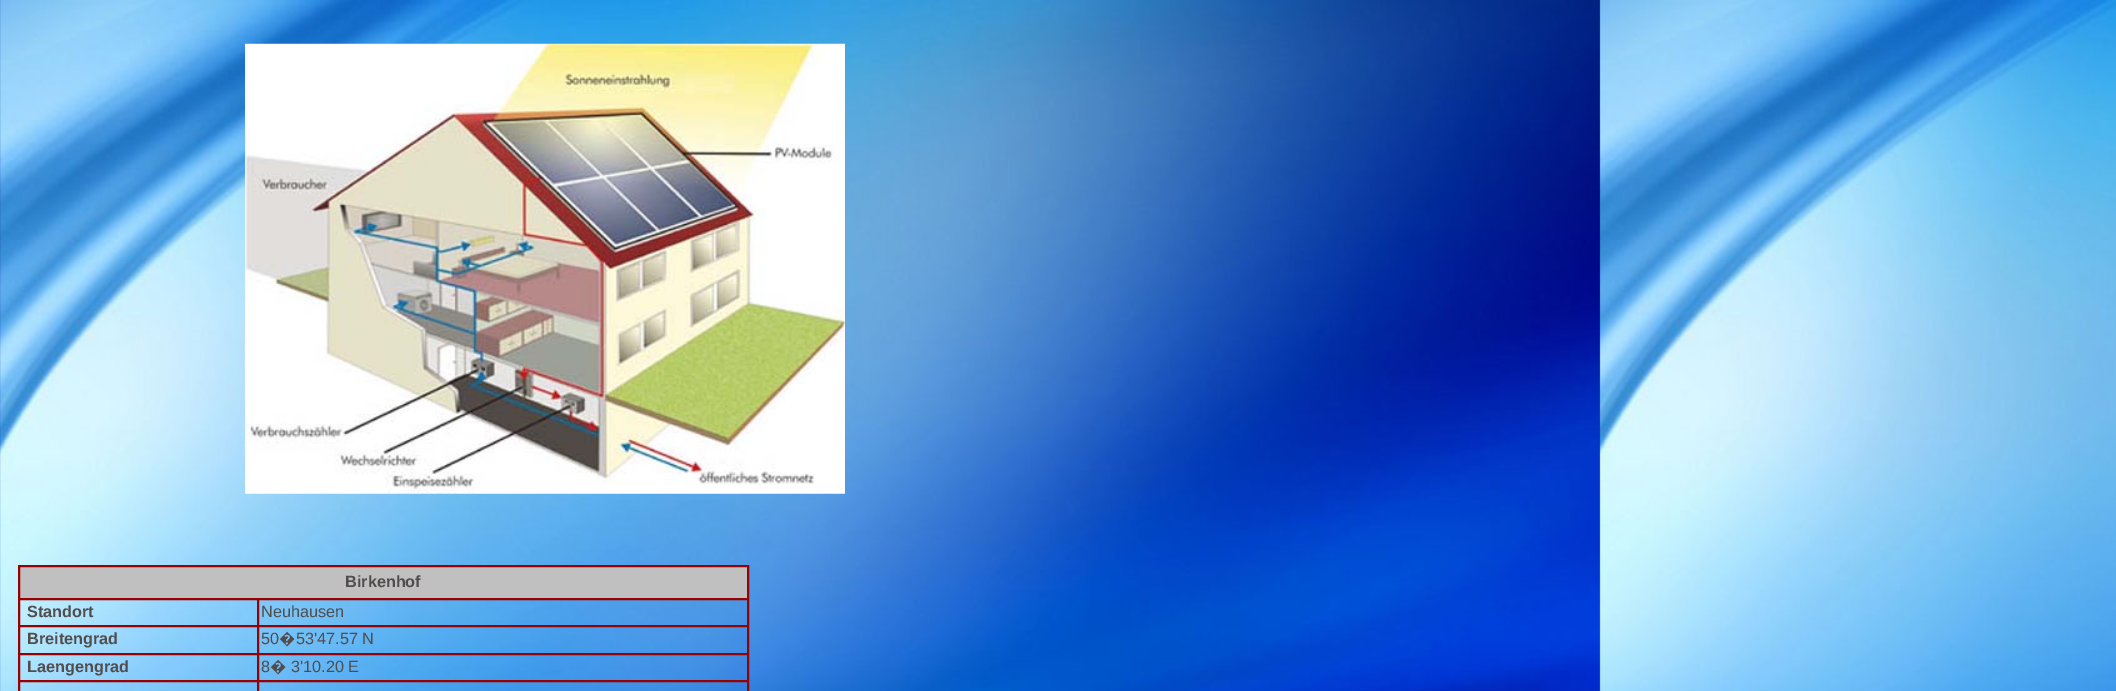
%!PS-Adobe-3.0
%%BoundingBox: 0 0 2116 691
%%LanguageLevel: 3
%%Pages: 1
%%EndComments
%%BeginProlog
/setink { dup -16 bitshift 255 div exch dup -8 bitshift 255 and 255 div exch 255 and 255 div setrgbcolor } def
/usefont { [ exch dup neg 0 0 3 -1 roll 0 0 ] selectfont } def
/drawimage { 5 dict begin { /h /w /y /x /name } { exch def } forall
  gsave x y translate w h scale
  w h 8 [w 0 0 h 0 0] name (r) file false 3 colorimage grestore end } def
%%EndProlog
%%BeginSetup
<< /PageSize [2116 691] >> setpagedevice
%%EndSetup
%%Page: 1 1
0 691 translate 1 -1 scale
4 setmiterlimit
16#FFFFFF setink
0 0 2116 691 rectfill
(img1.raw) 0 0 2116 691 drawimage
(img2.raw) 245 43 600 451 drawimage
16#990000 setink
18.5 565.5 730 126 rectstroke
16#C0C0C0 setink
19.5 566.5 moveto 747.5 566.5 lineto 747.5 598.5 lineto 19.5 598.5 lineto closepath gsave fill grestore
16#990000 setink
stroke
/LiberationSans-Bold 16.25 usefont
16#524D4D setink
345 587 moveto (Birkenhof) show
16#990000 setink
19.5 599.5 238 26 rectstroke
16#524D4D setink
27 617 moveto (Standort) show
16#990000 setink
258.5 599.5 489 26 rectstroke
/LiberationSans-Regular 16.25 usefont
16#524D4D setink
261 617 moveto (Neuhausen) show
16#990000 setink
19.5 626.5 238 27 rectstroke
/LiberationSans-Bold 16.25 usefont
16#524D4D setink
27 644 moveto (Breitengrad) show
16#990000 setink
258.5 626.5 489 27 rectstroke
/LiberationSans-Regular 16.25 usefont
16#524D4D setink
261 644 moveto (50) show
/NotoSans-Regular 16.25 usefont
279 644 moveto (�) show
/LiberationSans-Regular 16.25 usefont
296 644 moveto (53'47.57 N) show
16#990000 setink
19.5 654.5 238 26 rectstroke
/LiberationSans-Bold 16.25 usefont
16#524D4D setink
27 672 moveto (Laengengrad) show
16#990000 setink
258.5 654.5 489 26 rectstroke
/LiberationSans-Regular 16.25 usefont
16#524D4D setink
261 672 moveto (8) show
/NotoSans-Regular 16.25 usefont
270 672 moveto (�) show
/LiberationSans-Regular 16.25 usefont
291 672 moveto (3'10.20 E) show
16#990000 setink
19.5 681.5 238 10 rectstroke
258.5 681.5 489 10 rectstroke
showpage
%%EOF
